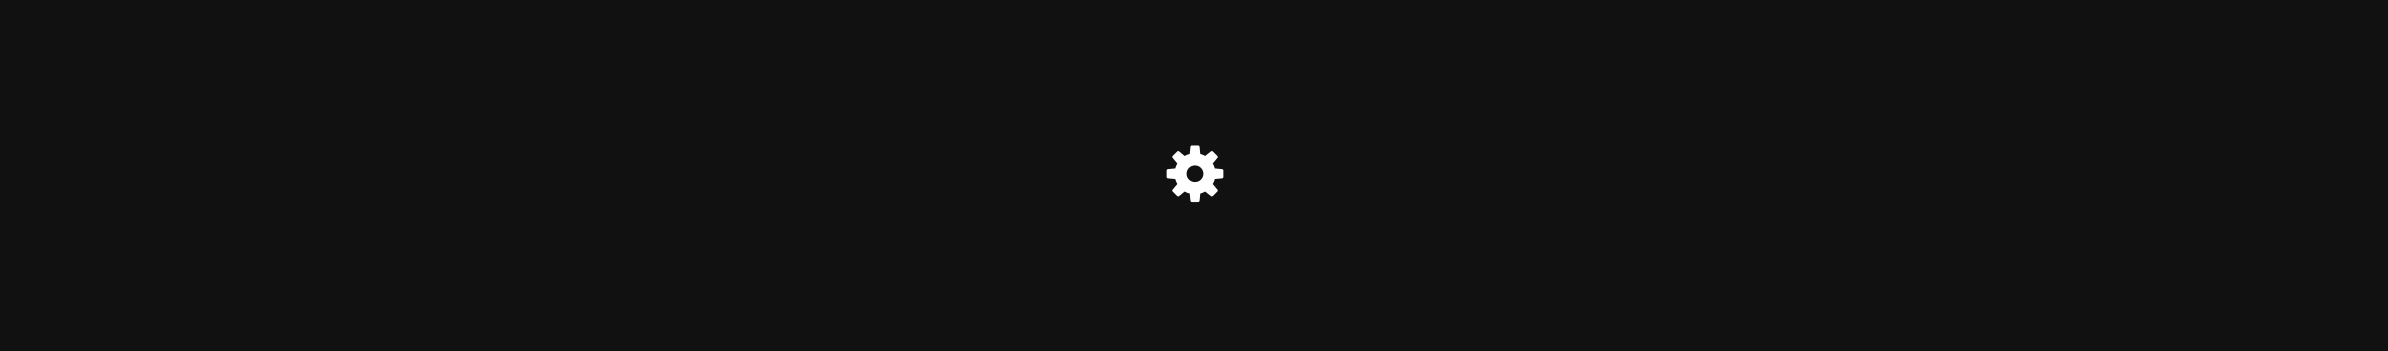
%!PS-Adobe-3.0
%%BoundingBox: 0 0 2388 351
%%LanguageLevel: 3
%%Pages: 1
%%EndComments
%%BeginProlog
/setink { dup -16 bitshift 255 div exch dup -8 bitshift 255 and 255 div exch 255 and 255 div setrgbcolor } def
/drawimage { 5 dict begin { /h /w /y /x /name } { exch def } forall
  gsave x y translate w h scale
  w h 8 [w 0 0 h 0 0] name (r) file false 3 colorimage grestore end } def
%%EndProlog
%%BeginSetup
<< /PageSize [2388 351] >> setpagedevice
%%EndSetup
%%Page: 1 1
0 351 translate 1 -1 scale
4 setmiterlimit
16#111111 setink
0 0 2388 351 rectfill
(img1.raw) 1166 145 58 58 drawimage
showpage
%%EOF
